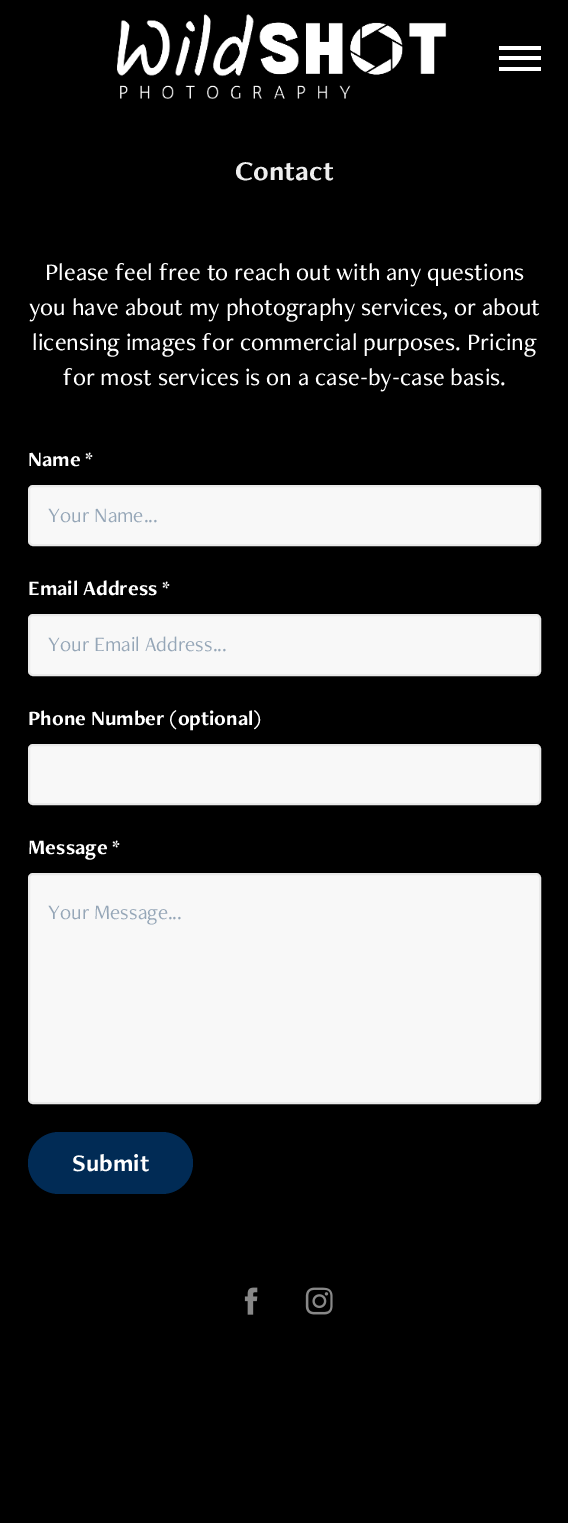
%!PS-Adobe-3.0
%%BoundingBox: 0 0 568 1523
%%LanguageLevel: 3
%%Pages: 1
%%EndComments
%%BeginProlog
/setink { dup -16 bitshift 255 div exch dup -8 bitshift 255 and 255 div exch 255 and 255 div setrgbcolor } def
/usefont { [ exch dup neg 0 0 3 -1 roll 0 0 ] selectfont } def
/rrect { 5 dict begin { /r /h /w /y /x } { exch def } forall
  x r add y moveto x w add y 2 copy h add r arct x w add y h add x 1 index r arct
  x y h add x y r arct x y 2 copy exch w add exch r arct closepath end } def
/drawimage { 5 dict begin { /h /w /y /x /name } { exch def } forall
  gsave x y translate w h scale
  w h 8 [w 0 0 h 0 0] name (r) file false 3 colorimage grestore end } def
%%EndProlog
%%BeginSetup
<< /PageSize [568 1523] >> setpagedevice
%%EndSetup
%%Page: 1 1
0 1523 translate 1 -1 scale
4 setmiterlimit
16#000000 setink
0 0 568 1523 rectfill
(img1.raw) 117 14 330 85 drawimage
[
    [499 46 42 4 16#FFFFFF]
    [499 56 42 4 16#FFFFFF]
    [499 67 42 4 16#FFFFFF]
] { aload pop setink rectfill } forall
/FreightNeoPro-Bold 28 usefont
16#EEEEEE setink
235 180 moveto (Contact) show
/FreightNeoPro-Medium 24.5 usefont
16#FFFFFF setink
[
    [(Please feel free to reach out with any questions) 45 280]
    [(you have about my photography services, or about) 29 315]
    [(licensing images for commercial purposes. Pricing) 32 350]
    [(for most services is on a case-by-case basis.) 63 385]
] { aload pop moveto show } forall
/FreightNeoPro-Bold 21 usefont
28 466 moveto (Name *) show
16#F8F8F8 setink
29 486 511 59 4 rrect gsave fill grestore
16#EAEAEA setink
2 setlinewidth
stroke
/FreightNeoPro-Regular 21 usefont
16#95A6B7 setink
48 522 moveto (Your Name...) show
/FreightNeoPro-Bold 21 usefont
16#FFFFFF setink
28 595 moveto (Email Address *) show
16#F8F8F8 setink
29 615 511 60 4 rrect gsave fill grestore
16#EAEAEA setink
stroke
/FreightNeoPro-Regular 21 usefont
16#95A6B7 setink
48 651 moveto (Your Email Address...) show
/FreightNeoPro-Bold 21 usefont
16#FFFFFF setink
28 725 moveto (Phone Number \(optional\)) show
16#F8F8F8 setink
29 745 511 59 4 rrect gsave fill grestore
16#EAEAEA setink
stroke
16#FFFFFF setink
28 854 moveto (Message *) show
16#F8F8F8 setink
29 874 511 229 4 rrect gsave fill grestore
16#EAEAEA setink
stroke
/FreightNeoPro-Regular 21 usefont
16#95A6B7 setink
48 919 moveto (Your Message...) show
16#012B55 setink
28 1132 165 62 31 rrect fill
/FreightNeoPro-Bold 24.5 usefont
16#FFFFFF setink
72 1171 moveto (Submit) show
(img2.raw) 244 1287 14 28 drawimage
(img3.raw) 305 1287 28 28 drawimage
showpage
%%EOF
